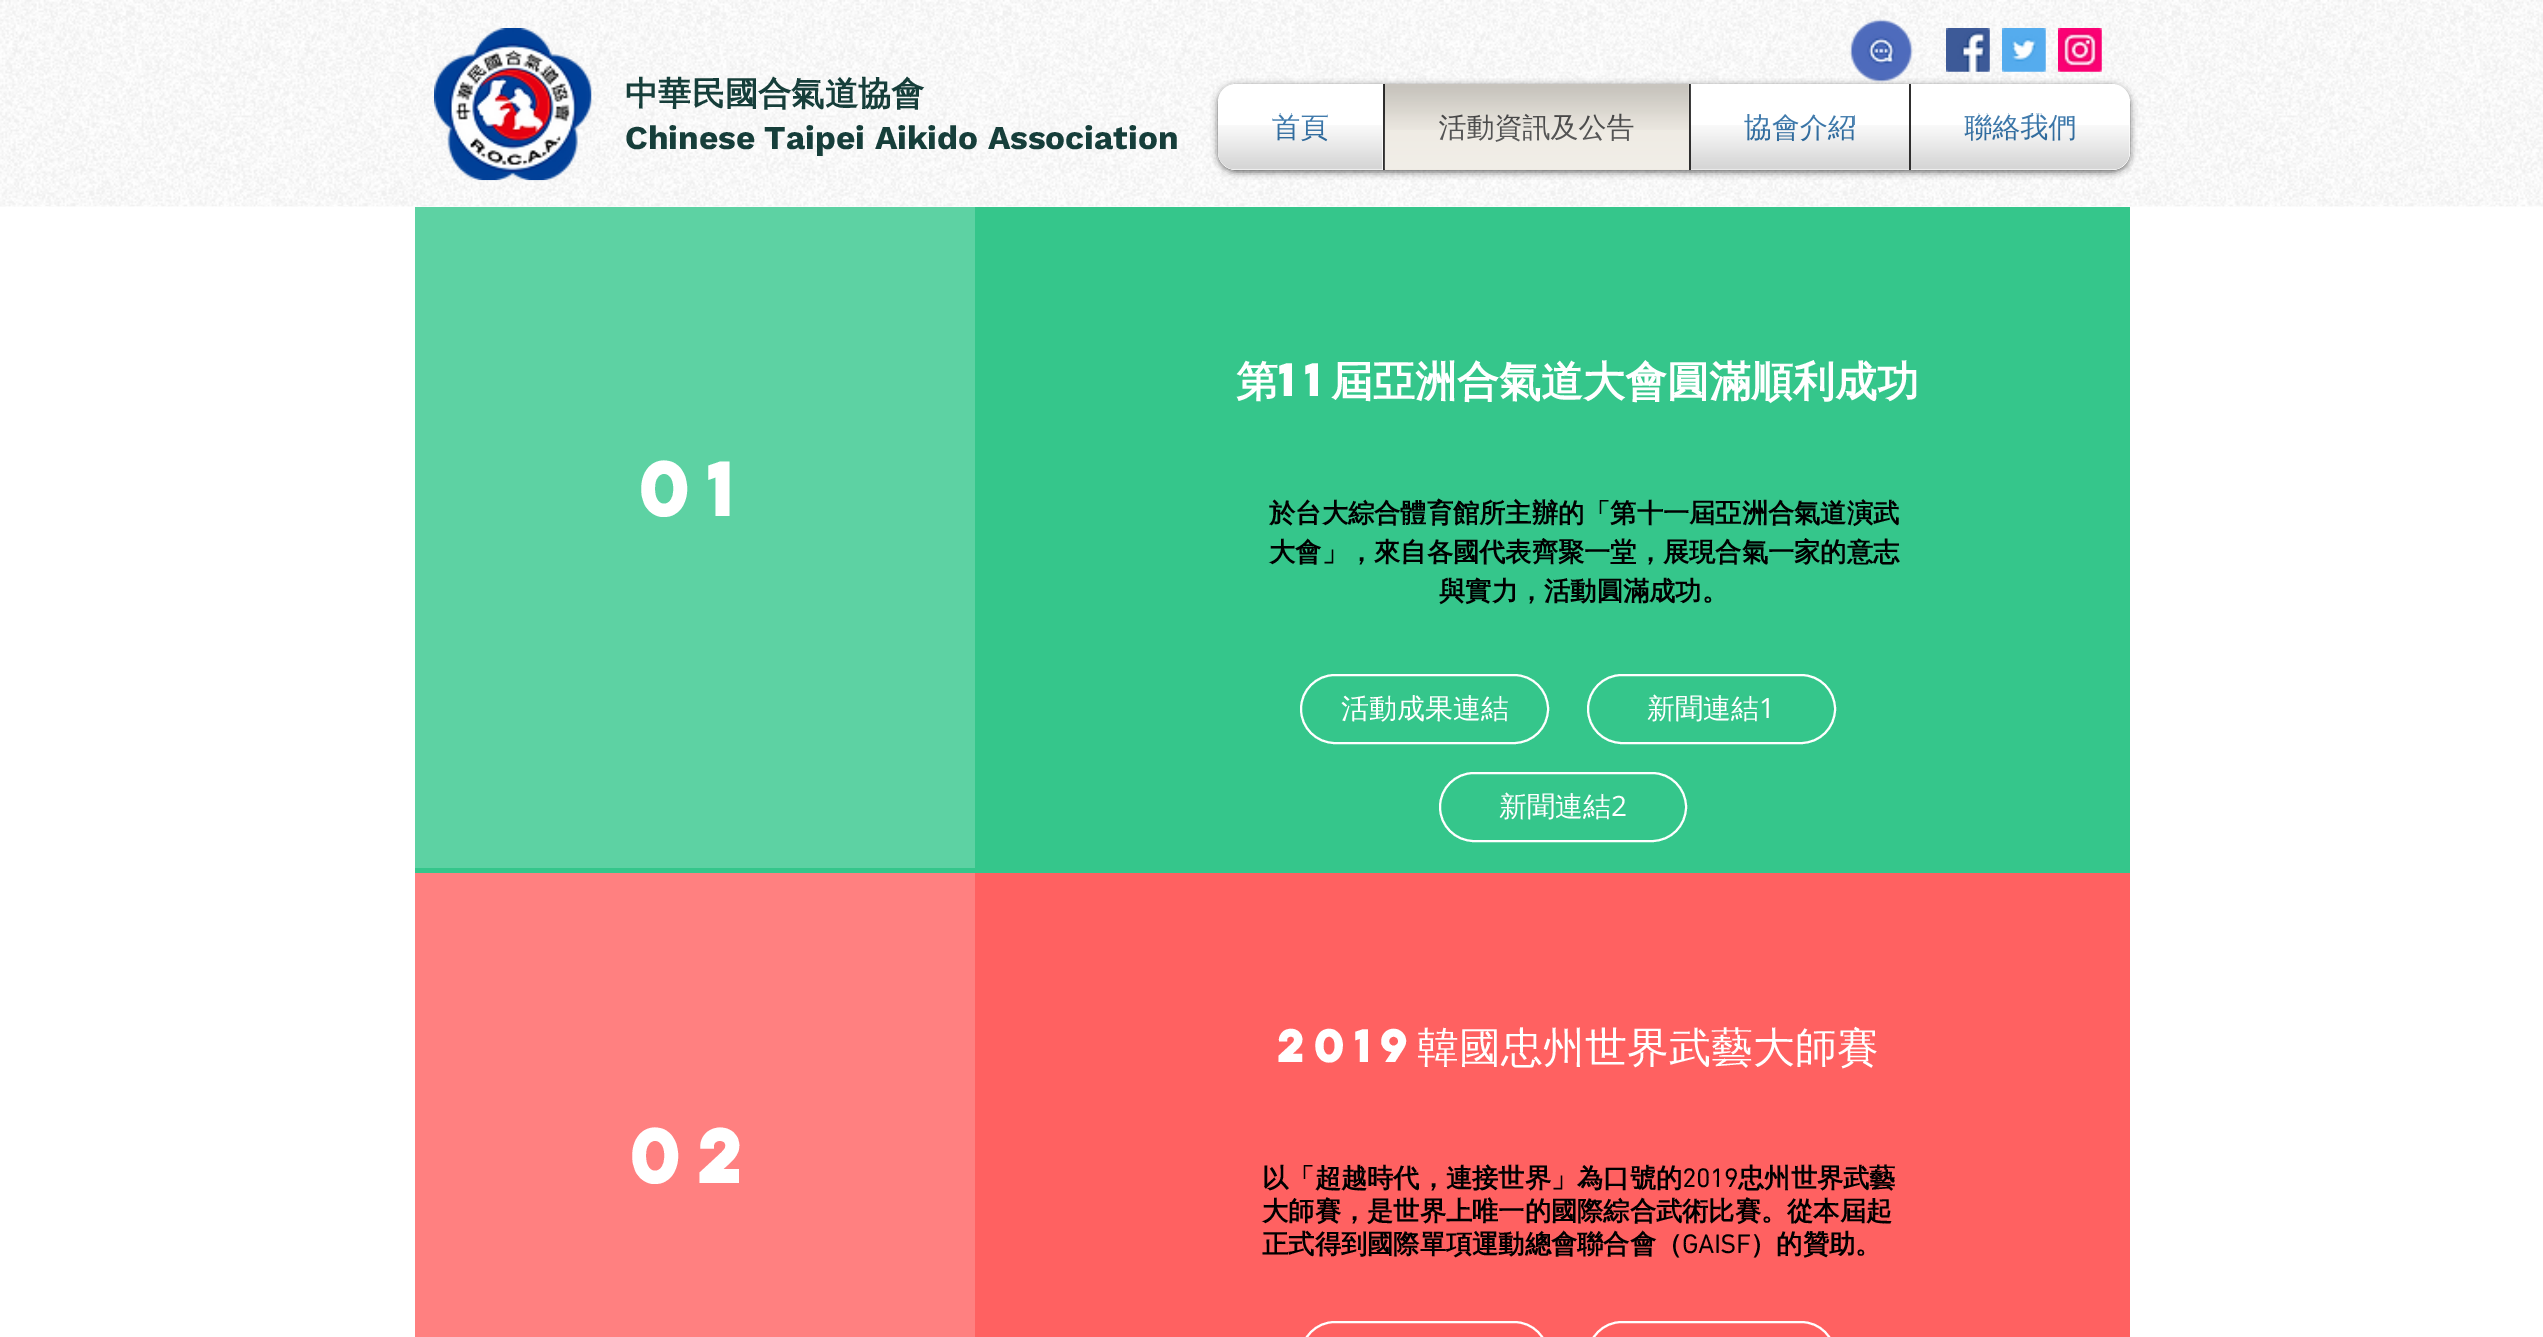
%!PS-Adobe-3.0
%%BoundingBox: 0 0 2543 1337
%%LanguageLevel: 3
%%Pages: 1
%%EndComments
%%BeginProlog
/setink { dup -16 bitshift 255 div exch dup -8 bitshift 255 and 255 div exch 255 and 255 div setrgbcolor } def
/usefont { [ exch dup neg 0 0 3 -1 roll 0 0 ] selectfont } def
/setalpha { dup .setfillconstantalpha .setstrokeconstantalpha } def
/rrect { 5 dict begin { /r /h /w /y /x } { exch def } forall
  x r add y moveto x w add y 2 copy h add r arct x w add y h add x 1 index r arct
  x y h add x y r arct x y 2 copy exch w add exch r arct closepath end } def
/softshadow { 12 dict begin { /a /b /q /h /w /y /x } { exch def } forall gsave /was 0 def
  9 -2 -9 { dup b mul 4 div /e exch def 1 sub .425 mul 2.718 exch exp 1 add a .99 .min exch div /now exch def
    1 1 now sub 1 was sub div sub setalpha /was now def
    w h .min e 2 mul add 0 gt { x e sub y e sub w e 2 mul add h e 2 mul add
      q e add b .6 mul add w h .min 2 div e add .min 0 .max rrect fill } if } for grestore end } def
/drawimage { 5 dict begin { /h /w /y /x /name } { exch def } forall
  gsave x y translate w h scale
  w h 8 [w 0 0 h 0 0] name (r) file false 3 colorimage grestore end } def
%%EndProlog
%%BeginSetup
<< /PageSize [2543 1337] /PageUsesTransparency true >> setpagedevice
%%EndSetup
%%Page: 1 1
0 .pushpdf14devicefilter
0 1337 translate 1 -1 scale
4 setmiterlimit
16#FFFFFF setink
0 0 2543 1337 rectfill
(img1.raw) 0 0 2543 207 drawimage
(img2.raw) 434 28 158 153 drawimage
/WenQuanYiZenHei-Bold 33.25 usefont
16#163E3A setink
625 105 moveto (中華民國合氣道協會) show
/WorkSans-Bold 33.25 usefont
625 149 moveto (Chinese Taipei Aikido Association) show
(img3.raw) 1849 19 64 64 drawimage
(img4.raw) 1946 28 44 44 drawimage
(img5.raw) 2002 28 44 44 drawimage
(img6.raw) 2058 28 44 44 drawimage
16#000000 setink
1218 86 912 86 18 3.5 0.6 softshadow
(img7.raw) 1218 152 912 18 drawimage
16#FFFFFF setink
1236 84 moveto 1383 84 lineto 1383 170 lineto 1236 170 lineto 1226 170 1218 162 1218 152 curveto 1218 102 lineto 1218 92 1226 84 1236 84 curveto closepath fill
/WenQuanYiZenHei-Bold 28 usefont
16#2B6CA3 setink
1272 137 moveto (首頁) show
(img8.raw) 1273 114 54 27 drawimage
(img9.raw) 1218 125 165 45 drawimage
16#EDE9E1 setink
1385 84 304 86 rectfill
16#2F2E2E setink
1383 84 2 86 rectfill
16#444444 setink
1439 137 moveto (活動資訊及公告) show
(img10.raw) 1384 84 305 45 drawimage
(img11.raw) 1384 114 305 56 drawimage
16#FFFFFF setink
1691 84 218 86 rectfill
16#2F2E2E setink
1689 84 2 86 rectfill
16#2B6CA3 setink
1744 137 moveto (協會介紹) show
(img12.raw) 1690 84 164 57 drawimage
(img13.raw) 1691 125 218 45 drawimage
16#FFFFFF setink
1909 84 moveto 2112 84 lineto 2122 84 2130 92 2130 102 curveto 2130 152 lineto 2130 162 2122 170 2112 170 curveto 1909 170 lineto closepath fill
16#2F2E2E setink
1909 84 2 86 rectfill
16#2B6CA3 setink
1964 137 moveto (聯絡我們) show
(img14.raw) 1964 114 111 26 drawimage
(img15.raw) 1911 125 219 45 drawimage
16#35C68B setink
415 207 1715 666 rectfill
/WenQuanYiZenHei-Bold 42 usefont
16#FFFFFF setink
1236 396 moveto (第) show
/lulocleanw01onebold-Bold 42 usefont
1278 396 moveto (11) show
/WenQuanYiZenHei-Bold 42 usefont
1331 396 moveto (屆亞洲合氣道大會圓滿順利成功) show
16#5DD2A3 setink
415 207 560 661 rectfill
/lulocleanw01onebold-Bold 70 usefont
16#FFFFFF setink
639 516 moveto (01) show
/WenQuanYiZenHei-Bold 26.25 usefont
16#000000 setink
[
    [(於台大綜合體育館所主辦的「第十一屆亞洲合氣道演武) 1269 522]
    [(大會」，來自各國代表齊聚一堂，展現合氣一家的意志) 1269 561]
    [(與實力，活動圓滿成功。) 1439 600]
] { aload pop moveto show } forall
16#FFFFFF setink
2 setlinewidth
1301 675 247 68 34 rrect stroke
/WenQuanYiZenHei-Medium 28 usefont
1341 718 moveto (活動成果連結) show
1588 675 247 68 34 rrect stroke
1647 718 moveto (新聞連結) show
/OpenSans-Regular 28 usefont
1759 718 moveto (1) show
1440 773 246 68 34 rrect stroke
/WenQuanYiZenHei-Medium 28 usefont
1499 816 moveto (新聞連結) show
/OpenSans-Regular 28 usefont
1611 816 moveto (2) show
16#FF6161 setink
975 873 1155 464 rectfill
/lulocleanw01onebold-Bold 42 usefont
16#FFFFFF setink
1277 1062 moveto (2019) show
/WenQuanYiZenHei-Medium 42 usefont
1417 1062 moveto (韓國忠州世界武藝大師賽) show
16#FF8080 setink
415 873 560 464 rectfill
/lulocleanw01onebold-Bold 70 usefont
16#FFFFFF setink
630 1183 moveto (02) show
/WenQuanYiZenHei-Bold 26.25 usefont
16#000000 setink
1262 1187 moveto (以「超越時代，連接世界」為口號的) show
/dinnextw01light-Bold 26.25 usefont
1682 1187 moveto (2019) show
/WenQuanYiZenHei-Bold 26.25 usefont
[
    [(忠州世界武藝) 1738 1187]
    [(大師賽，是世界上唯一的國際綜合武術比賽。從本屆起) 1262 1220]
    [(正式得到國際單項運動總會聯合會（) 1262 1253]
] { aload pop moveto show } forall
/dinnextw01light-Bold 26.25 usefont
1682 1253 moveto (GAISF) show
/WenQuanYiZenHei-Bold 26.25 usefont
1750 1253 moveto (）的贊助。) show
16#FFFFFF setink
1301 1322 247 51 34 rrect stroke
1588 1322 247 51 34 rrect stroke
.poppdf14devicefilter showpage
%%EOF
